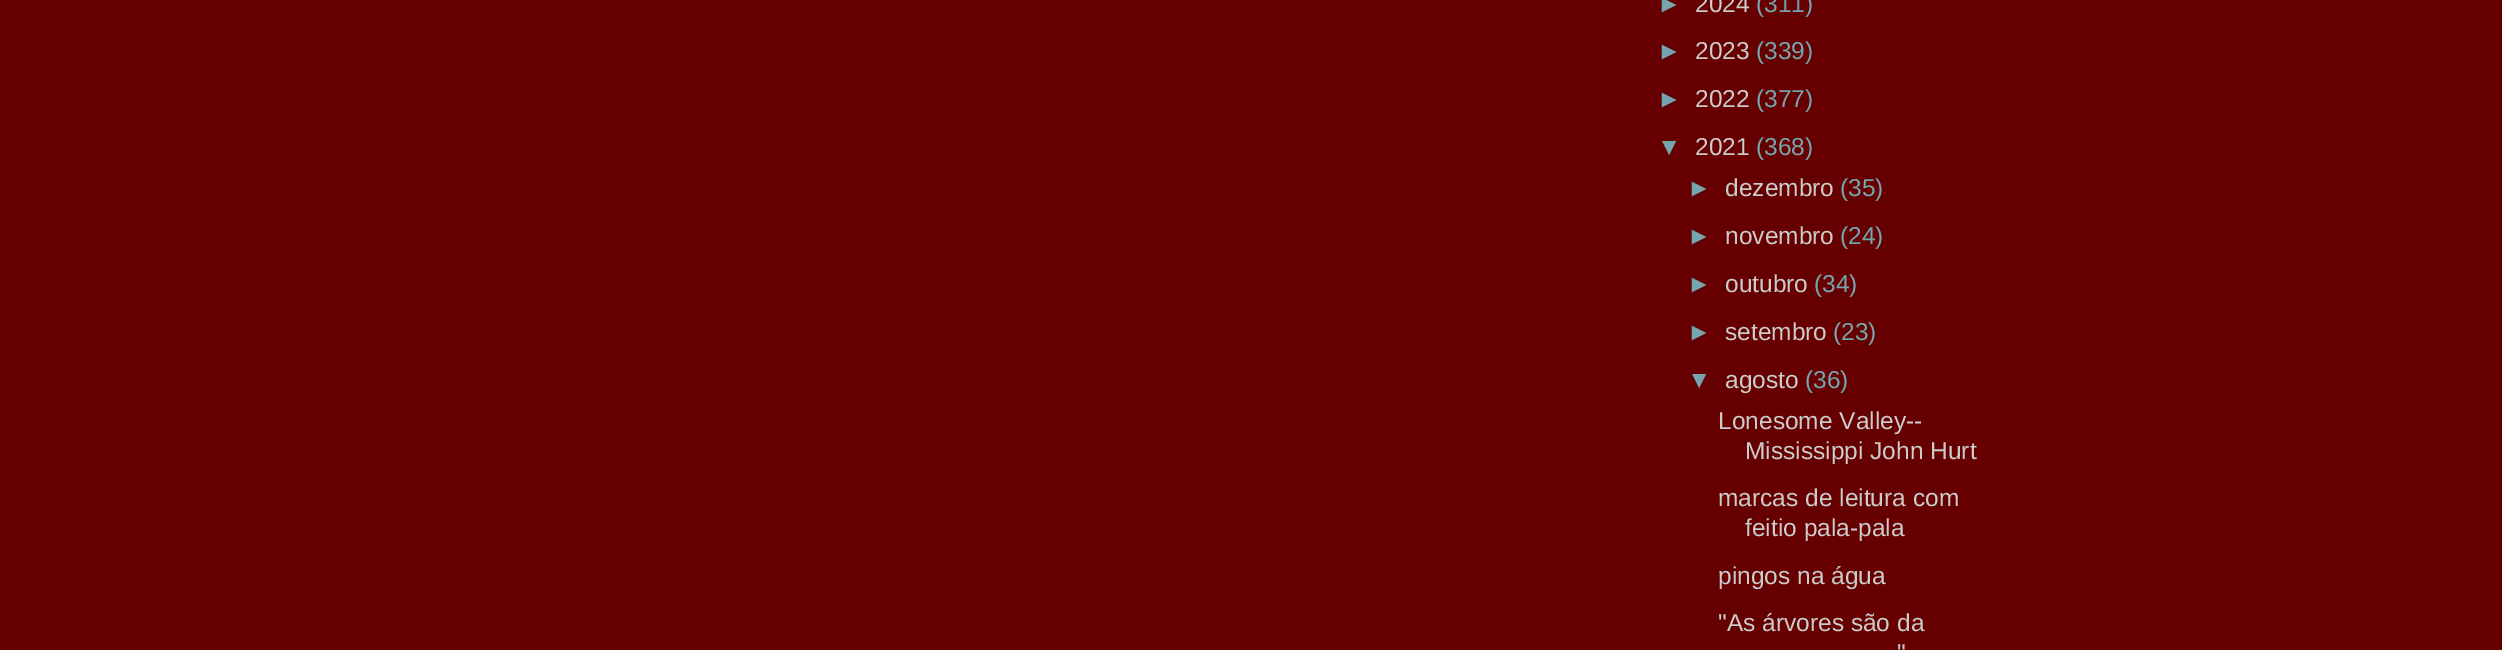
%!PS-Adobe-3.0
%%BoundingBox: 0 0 2502 650
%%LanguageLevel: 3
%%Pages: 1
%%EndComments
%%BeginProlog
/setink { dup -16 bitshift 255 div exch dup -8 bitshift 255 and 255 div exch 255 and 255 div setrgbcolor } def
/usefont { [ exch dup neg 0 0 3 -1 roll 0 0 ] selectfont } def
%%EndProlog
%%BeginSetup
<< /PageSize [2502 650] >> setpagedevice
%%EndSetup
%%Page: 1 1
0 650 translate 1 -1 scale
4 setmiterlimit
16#660000 setink
0 0 2502 650 rectfill
/LiberationSans-Regular 24.5 usefont
16#76A5AF setink
1657 12 moveto (►) show
16#CCCCCC setink
1695 12 moveto (2024) show
16#76A5AF setink
1756 12 moveto (\(311\)) show
1657 59 moveto (►) show
16#CCCCCC setink
1695 59 moveto (2023) show
16#76A5AF setink
1756 59 moveto (\(339\)) show
1657 107 moveto (►) show
16#CCCCCC setink
1695 107 moveto (2022) show
16#76A5AF setink
1756 107 moveto (\(377\)) show
1657 155 moveto (▼) show
16#CCCCCC setink
1695 155 moveto (2021) show
16#76A5AF setink
1756 155 moveto (\(368\)) show
1687 196 moveto (►) show
16#CCCCCC setink
1725 196 moveto (dezembro) show
16#76A5AF setink
1840 196 moveto (\(35\)) show
1687 244 moveto (►) show
16#CCCCCC setink
1725 244 moveto (novembro) show
16#76A5AF setink
1840 244 moveto (\(24\)) show
1687 292 moveto (►) show
16#CCCCCC setink
1725 292 moveto (outubro) show
16#76A5AF setink
1814 292 moveto (\(34\)) show
1687 340 moveto (►) show
16#CCCCCC setink
1725 340 moveto (setembro) show
16#76A5AF setink
1833 340 moveto (\(23\)) show
1687 388 moveto (▼) show
16#CCCCCC setink
1725 388 moveto (agosto) show
16#76A5AF setink
1805 388 moveto (\(36\)) show
16#CCCCCC setink
[
    [(Lonesome Valley--) 1718 429]
    [(Mississippi John Hurt) 1745 459]
    [(marcas de leitura com) 1718 506]
    [(feitio pala-pala) 1745 536]
    [(pingos na água) 1718 584]
    [("As árvores são da) 1718 631]
    [(") 1897 661]
] { aload pop moveto show } forall
showpage
%%EOF
